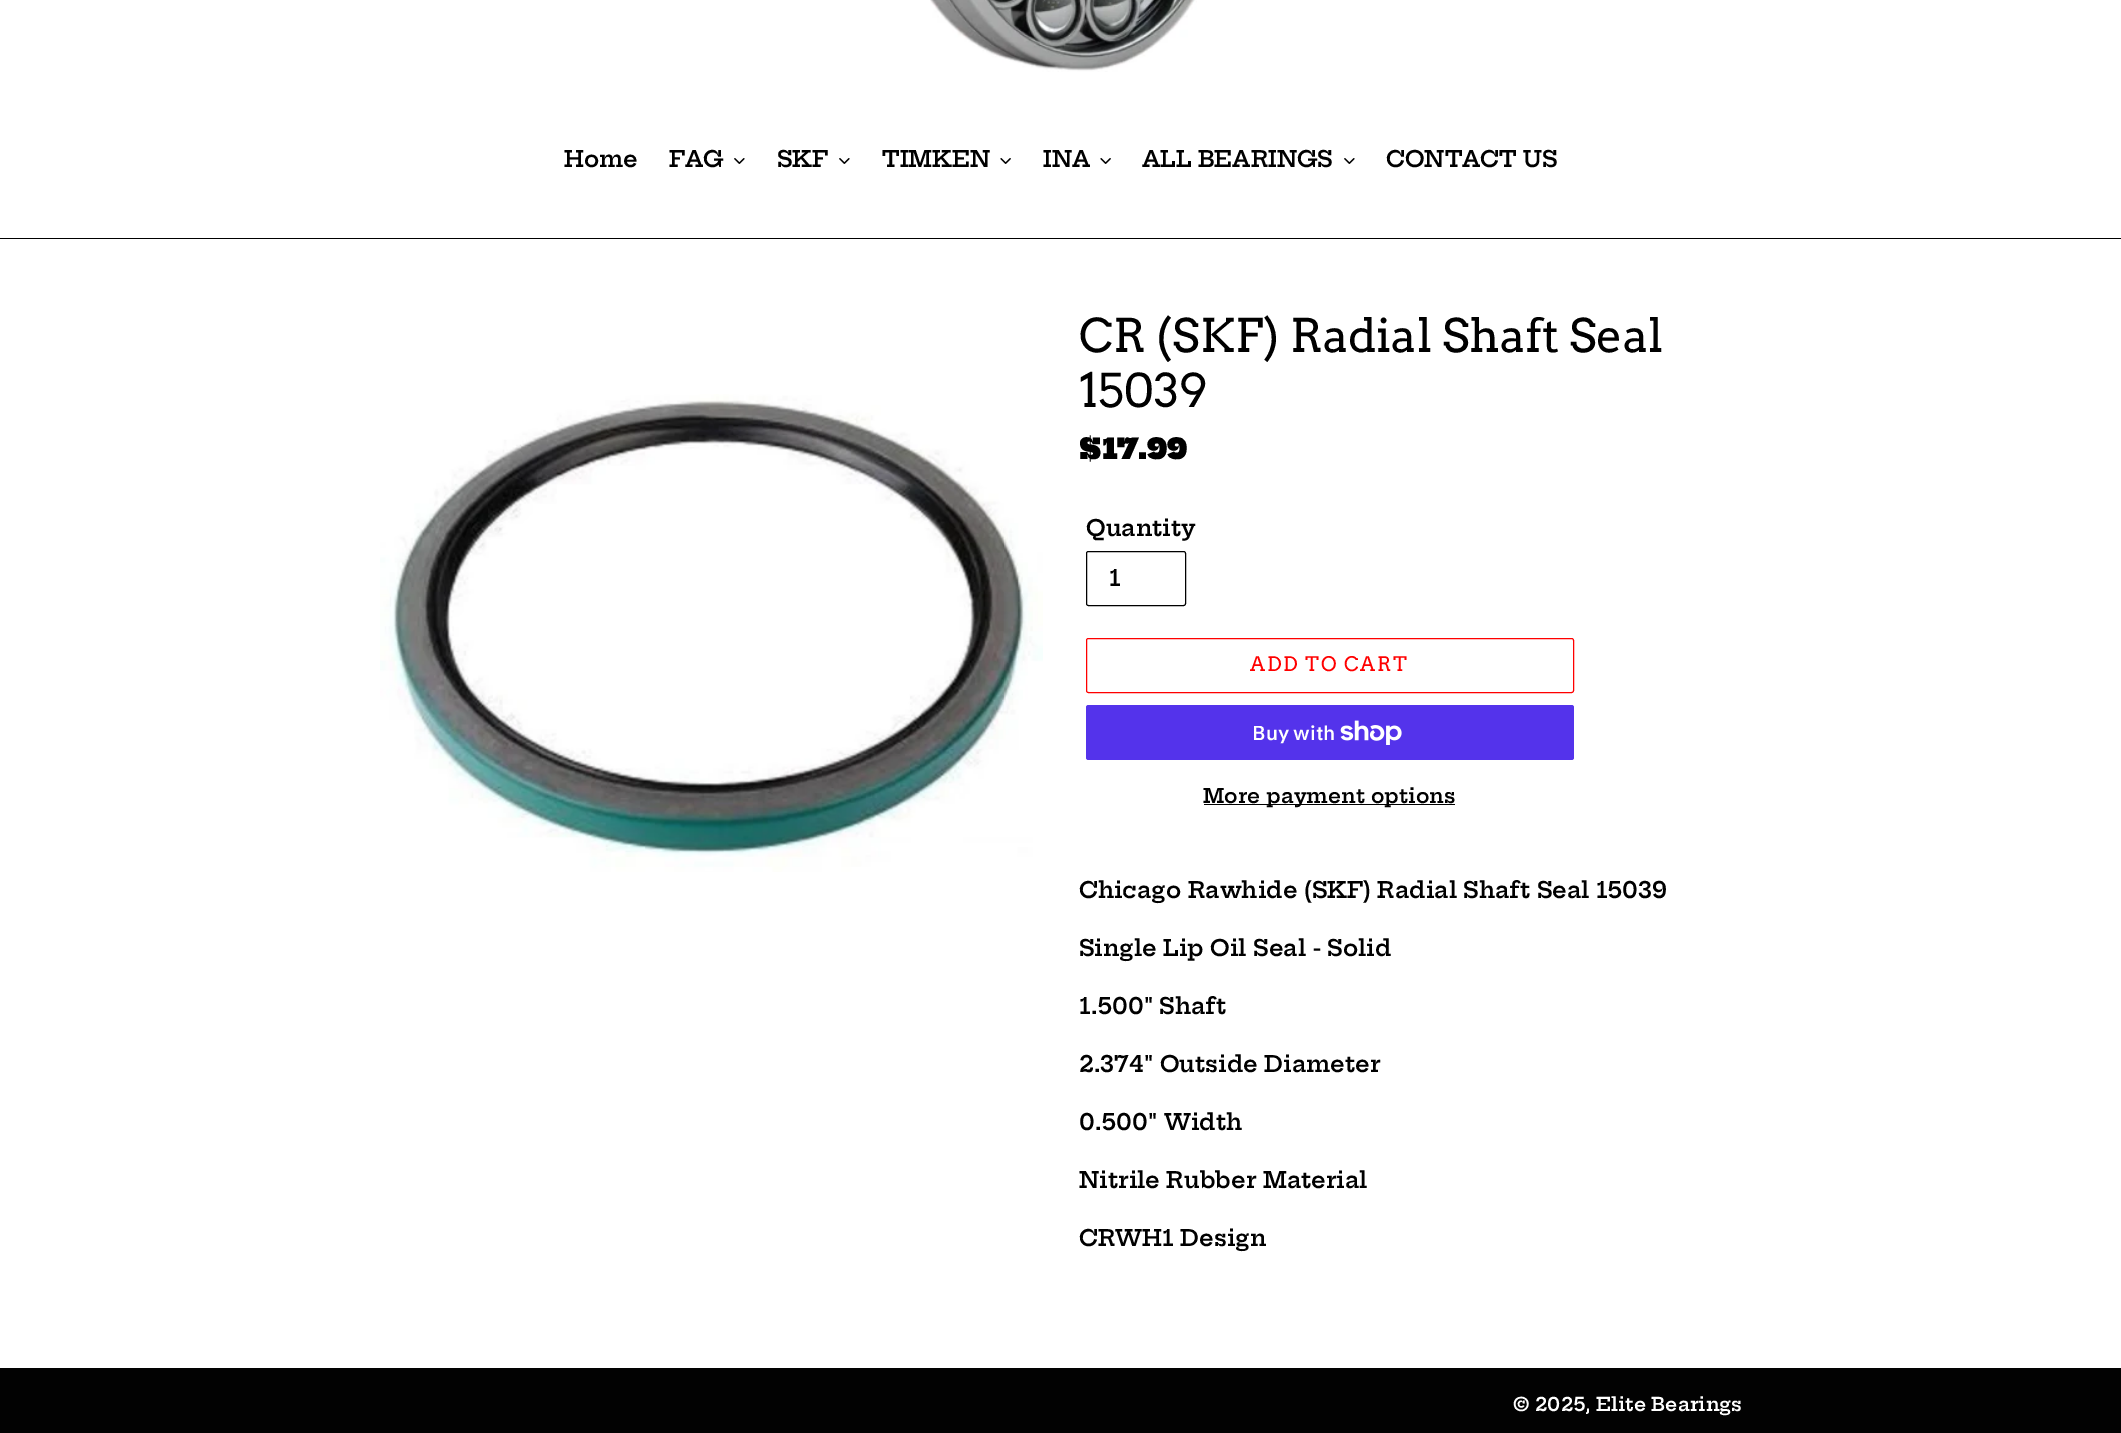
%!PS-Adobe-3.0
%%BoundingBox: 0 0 2121 1433
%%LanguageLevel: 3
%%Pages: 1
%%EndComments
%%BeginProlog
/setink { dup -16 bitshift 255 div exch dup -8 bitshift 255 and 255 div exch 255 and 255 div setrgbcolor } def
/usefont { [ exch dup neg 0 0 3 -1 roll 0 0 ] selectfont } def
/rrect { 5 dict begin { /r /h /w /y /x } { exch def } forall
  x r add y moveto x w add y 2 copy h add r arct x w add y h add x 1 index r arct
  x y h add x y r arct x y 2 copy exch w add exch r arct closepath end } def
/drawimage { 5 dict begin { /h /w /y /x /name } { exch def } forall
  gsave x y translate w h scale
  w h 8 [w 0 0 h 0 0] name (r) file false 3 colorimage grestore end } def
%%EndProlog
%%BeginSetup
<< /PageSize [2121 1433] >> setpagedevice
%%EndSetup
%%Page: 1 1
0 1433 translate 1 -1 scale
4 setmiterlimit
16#FFFFFF setink
0 0 2121 1433 rectfill
(img1.raw) 930 0 267 72 drawimage
16#000000 setink
0 238 2121 1 rectfill
/HeptaSlab-SemiBold 22.5 usefont
564 167 moveto (Home) show
669 167 moveto (FAG) show
(img2.raw) 734 158 11 6 drawimage
777 167 moveto (SKF) show
(img2.raw) 839 158 11 6 drawimage
882 167 moveto (TIMKEN) show
(img3.raw) 1000 158 11 6 drawimage
1043 167 moveto (INA) show
(img3.raw) 1100 158 11 6 drawimage
1142 167 moveto (ALL BEARINGS) show
(img2.raw) 1344 158 11 6 drawimage
1386 167 moveto (CONTACT US) show
(img4.raw) 380 394 663 478 drawimage
/Arvo-Regular 46.25 usefont
1079 352 moveto (CR \(SKF\) Radial Shaft Seal) show
1079 407 moveto (15039) show
/HeptaSlab-Black 28 usefont
1079 459 moveto ($17.99) show
/HeptaSlab-SemiBold 22.5 usefont
1086 536 moveto (Quantity) show
1086.5 551.5 99 54 2 rrect stroke
1109 586 moveto (1) show
16#FF0000 setink
1086.5 638.5 487 54 2 rrect stroke
/Arvo-Regular 20 usefont
1250 671 moveto 1.6 0 (ADD TO CART) ashow
16#5433EB setink
1086 705 488 55 2.5 rrect fill
/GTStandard-SemiBold 20 usefont
16#FFFFFF setink
1252 740 moveto (Buy with) show
(img5.raw) 1340 720 62 25 drawimage
16#000000 setink
1204 804 251 1 rectfill
/HeptaSlab-SemiBold 20 usefont
1203 803 moveto (More payment options) show
/HeptaSlab-SemiBold 22.5 usefont
[
    [(Chicago Rawhide \(SKF\) Radial Shaft Seal 15039) 1079 898]
    [(Single Lip Oil Seal - Solid) 1079 956]
    [(1.500" Shaft) 1079 1014]
    [(2.374" Outside Diameter) 1079 1072]
    [(0.500" Width) 1079 1130]
    [(Nitrile Rubber Material) 1079 1188]
    [(CRWH1 Design) 1079 1246]
] { aload pop moveto show } forall
16#020202 setink
0 1368 2121 65 rectfill
/HeptaSlab-SemiBold 18.75 usefont
16#FFFFFF setink
1513 1411 moveto (© 2025, Elite Bearings) show
showpage
%%EOF
